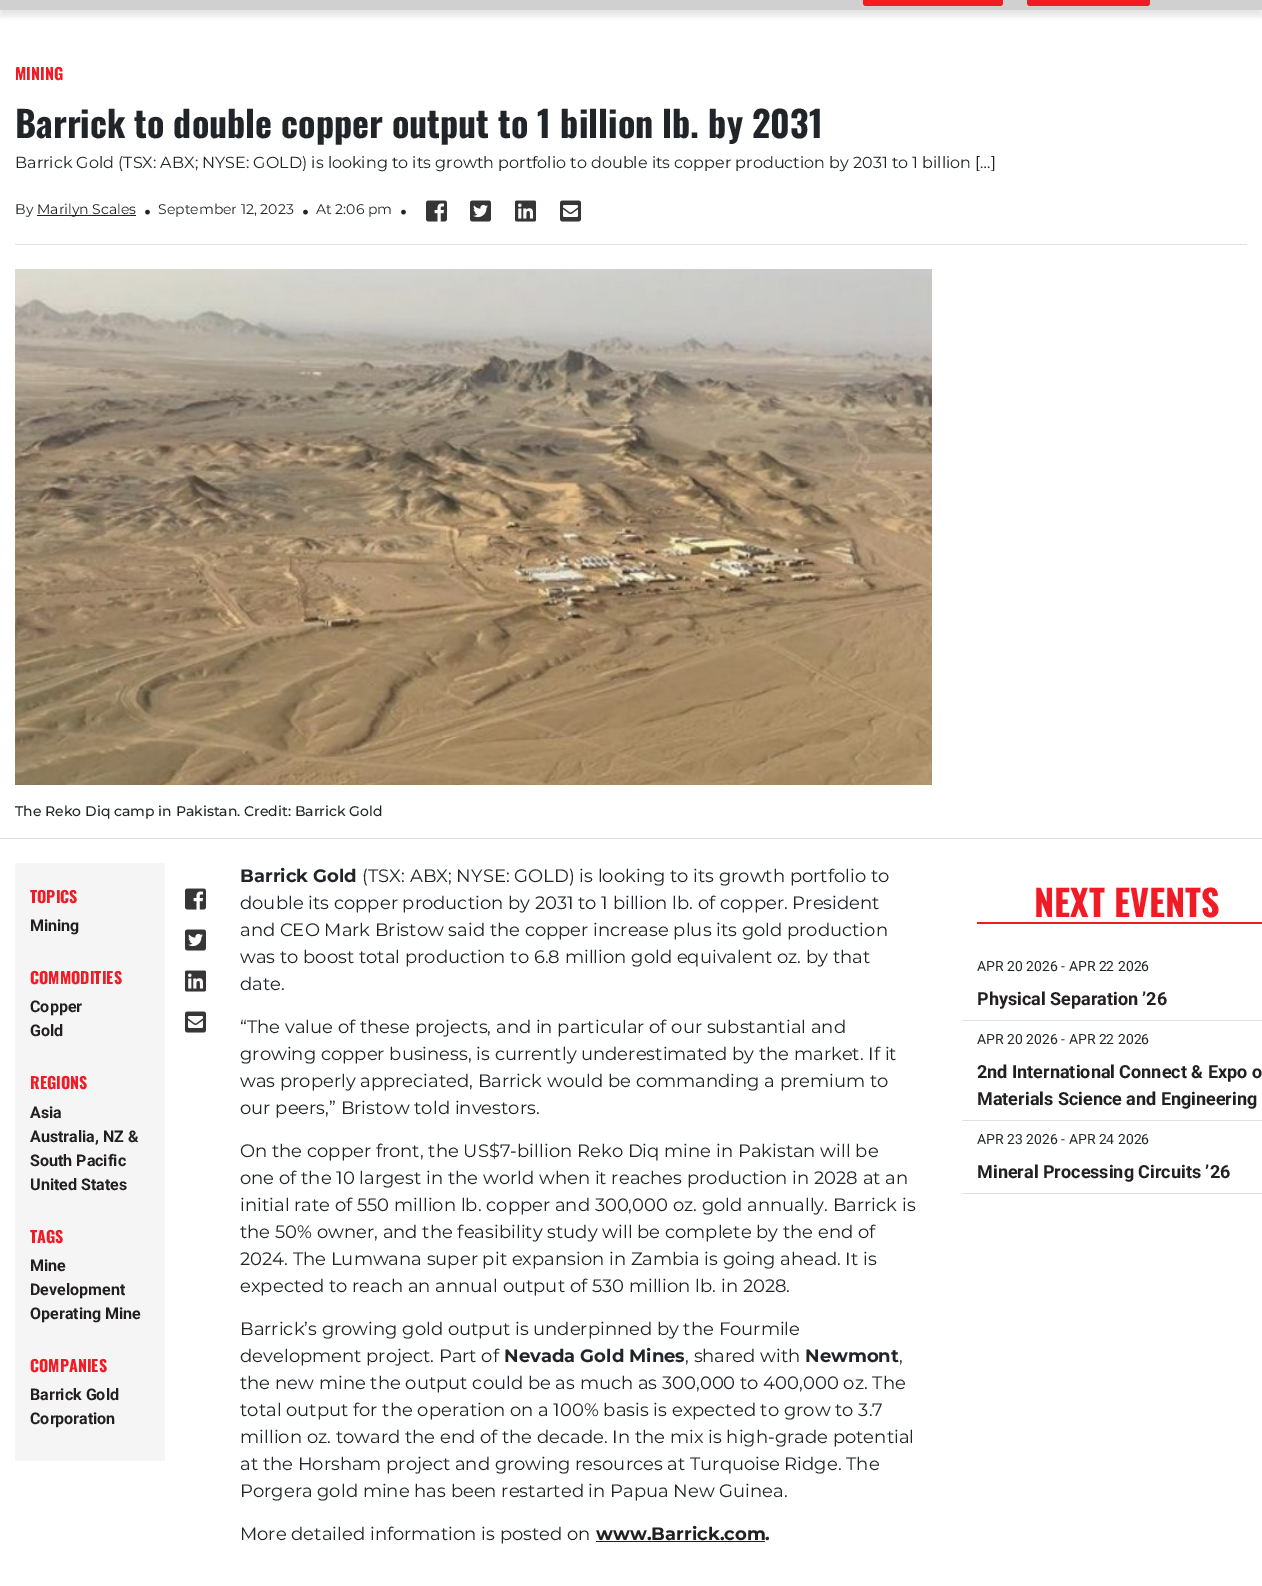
%!PS-Adobe-3.0
%%BoundingBox: 0 0 1262 1586
%%LanguageLevel: 3
%%Pages: 1
%%EndComments
%%BeginProlog
/setink { dup -16 bitshift 255 div exch dup -8 bitshift 255 and 255 div exch 255 and 255 div setrgbcolor } def
/usefont { [ exch dup neg 0 0 3 -1 roll 0 0 ] selectfont } def
/setalpha { dup .setfillconstantalpha .setstrokeconstantalpha } def
/rrect { 5 dict begin { /r /h /w /y /x } { exch def } forall
  x r add y moveto x w add y 2 copy h add r arct x w add y h add x 1 index r arct
  x y h add x y r arct x y 2 copy exch w add exch r arct closepath end } def
/softshadow { 12 dict begin { /a /b /q /h /w /y /x } { exch def } forall gsave /was 0 def
  9 -2 -9 { dup b mul 4 div /e exch def 1 sub .425 mul 2.718 exch exp 1 add a .99 .min exch div /now exch def
    1 1 now sub 1 was sub div sub setalpha /was now def
    w h .min e 2 mul add 0 gt { x e sub y e sub w e 2 mul add h e 2 mul add
      q e add b .6 mul add w h .min 2 div e add .min 0 .max rrect fill } if } for grestore end } def
/drawimage { 5 dict begin { /h /w /y /x /name } { exch def } forall
  gsave x y translate w h scale
  w h 8 [w 0 0 h 0 0] name (r) file false 3 colorimage grestore end } def
%%EndProlog
%%BeginSetup
<< /PageSize [1262 1586] /PageUsesTransparency true >> setpagedevice
%%EndSetup
%%Page: 1 1
0 .pushpdf14devicefilter
0 1586 translate 1 -1 scale
4 setmiterlimit
16#FFFFFF setink
0 0 1262 1586 rectfill
16#000000 setink
0 -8 1262 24 0 2.5 0.1 softshadow
16#D0D0D0 setink
0 0 1262 10 rectfill
16#F01B25 setink
863 -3 140 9 3 rrect fill
1027 -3 123 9 3 rrect fill
/Oswald-Bold 16 usefont
15 80 moveto (MINING) show
/Oswald-Bold 36 usefont
16#212529 setink
15 138 moveto (Barrick to double copper output to 1 billion lb. by 2031) show
/Montserrat-Regular 16 usefont
15 168 moveto (Barrick Gold \(TSX: ABX; NYSE: GOLD\) is looking to its growth portfolio to double its copper production by 2031 to 1 billion […]) show
16#DEE2E6 setink
15 244 1232 1 rectfill
/Montserrat-Regular 14 usefont
16#212529 setink
15 214 moveto (By) show
16#231F20 setink
37 215 99 1 rectfill
37 214 moveto (Marilyn Scales) show
(img1.raw) 145 209 5 6 drawimage
16#212529 setink
158 214 moveto (September 12, 2023) show
(img1.raw) 303 209 5 6 drawimage
316 214 moveto (At 2:06 pm) show
(img1.raw) 401 209 5 6 drawimage
(img2.raw) 426 200 21 22 drawimage
(img3.raw) 470 200 21 22 drawimage
(img4.raw) 515 200 21 22 drawimage
(img5.raw) 560 200 21 22 drawimage
16#DEE2E6 setink
0 838 1262 1 rectfill
(img6.raw) 15 269 917 516 drawimage
/Montserrat-Medium 14 usefont
16#212529 setink
15 816 moveto (The Reko Diq camp in Pakistan. Credit: Barrick Gold) show
16#F5F5F5 setink
15 863 150 598 rectfill
/Oswald-Bold 16 usefont
16#F01B25 setink
30 903 moveto (TOPICS) show
/Roboto-Bold 16 usefont
16#231F20 setink
30 931 moveto (Mining) show
/Oswald-Bold 16 usefont
16#F01B25 setink
30 984 moveto (COMMODITIES) show
/Roboto-Bold 16 usefont
16#231F20 setink
30 1012 moveto (Copper) show
30 1036 moveto (Gold) show
/Oswald-Bold 16 usefont
16#F01B25 setink
30 1089 moveto (REGIONS) show
/Roboto-Bold 16 usefont
16#231F20 setink
[
    [(Asia) 30 1118]
    [(Australia, NZ &) 30 1142]
    [(South Pacific) 30 1166]
    [(United States) 30 1190]
] { aload pop moveto show } forall
/Oswald-Bold 16 usefont
16#F01B25 setink
30 1243 moveto (TAGS) show
/Roboto-Bold 16 usefont
16#231F20 setink
[
    [(Mine) 30 1271]
    [(Development) 30 1295]
    [(Operating Mine) 30 1319]
] { aload pop moveto show } forall
/Oswald-Bold 16 usefont
16#F01B25 setink
30 1372 moveto (COMPANIES) show
/Roboto-Bold 16 usefont
16#231F20 setink
30 1400 moveto (Barrick Gold) show
30 1424 moveto (Corporation) show
(img2.raw) 185 888 21 22 drawimage
(img3.raw) 185 929 21 22 drawimage
(img4.raw) 185 970 21 22 drawimage
(img5.raw) 185 1011 21 22 drawimage
/Montserrat-Bold 18 usefont
16#212529 setink
240 882 moveto (Barrick Gold) show
/Montserrat-Regular 18 usefont
[
    [(\(TSX: ABX; NYSE: GOLD\) is looking to its growth portfolio to) 362 882]
    [(double its copper production by 2031 to 1 billion lb. of copper. President) 240 909]
    [(and CEO Mark Bristow said the copper increase plus its gold production) 240 936]
    [(was to boost total production to 6.8 million gold equivalent oz. by that) 240 963]
    [(date.) 240 990]
    [(“The value of these projects, and in particular of our substantial and) 240 1033]
    [(growing copper business, is currently underestimated by the market. If it) 240 1060]
    [(was properly appreciated, Barrick would be commanding a premium to) 240 1087]
    [(our peers,” Bristow told investors.) 240 1114]
    [(On the copper front, the US$7-billion Reko Diq mine in Pakistan will be) 240 1157]
    [(one of the 10 largest in the world when it reaches production in 2028 at an) 240 1184]
    [(initial rate of 550 million lb. copper and 300,000 oz. gold annually. Barrick is) 240 1211]
    [(the 50% owner, and the feasibility study will be complete by the end of) 240 1238]
    [(2024. The Lumwana super pit expansion in Zambia is going ahead. It is) 240 1265]
    [(expected to reach an annual output of 530 million lb. in 2028.) 240 1292]
    [(Barrick’s growing gold output is underpinned by the Fourmile) 240 1335]
    [(development project. Part of) 240 1362]
] { aload pop moveto show } forall
/Montserrat-Bold 18 usefont
504 1362 moveto (Nevada Gold Mines) show
/Montserrat-Regular 18 usefont
685 1362 moveto (, shared with) show
/Montserrat-Bold 18 usefont
805 1362 moveto (Newmont) show
/Montserrat-Regular 18 usefont
[
    [(,) 899 1362]
    [(the new mine the output could be as much as 300,000 to 400,000 oz. The) 240 1389]
    [(total output for the operation on a 100% basis is expected to grow to 3.7) 240 1416]
    [(million oz. toward the end of the decade. In the mix is high-grade potential) 240 1443]
    [(at the Horsham project and growing resources at Turquoise Ridge. The) 240 1470]
    [(Porgera gold mine has been restarted in Papua New Guinea.) 240 1497]
    [(More detailed information is posted on) 240 1540]
] { aload pop moveto show } forall
/Montserrat-Bold 18 usefont
16#231F20 setink
596 1540 moveto (www.Barrick.com) show
16#212529 setink
765 1540 moveto (.) show
16#231F20 setink
596 1541 169 1 rectfill
16#F01B25 setink
977 922 285 2 rectfill
/Oswald-Bold 36 usefont
1034 917 moveto (NEXT EVENTS) show
16#DEE2E6 setink
962 1020 300 1 rectfill
/Roboto-Regular 14 usefont
16#212529 setink
977 971 moveto (APR 20 2026 - APR 22 2026) show
/Roboto-Bold 18 usefont
16#231F20 setink
977 1005 moveto (Physical Separation ’26) show
16#DEE2E6 setink
962 1120 300 1 rectfill
/Roboto-Regular 14 usefont
16#212529 setink
977 1044 moveto (APR 20 2026 - APR 22 2026) show
/Roboto-Bold 18 usefont
16#231F20 setink
977 1078 moveto (2nd International Connect & Expo o) show
977 1105 moveto (Materials Science and Engineering) show
16#DEE2E6 setink
962 1193 300 1 rectfill
/Roboto-Regular 14 usefont
16#212529 setink
977 1144 moveto (APR 23 2026 - APR 24 2026) show
/Roboto-Bold 18 usefont
16#231F20 setink
977 1178 moveto (Mineral Processing Circuits ’26) show
.poppdf14devicefilter showpage
%%EOF
